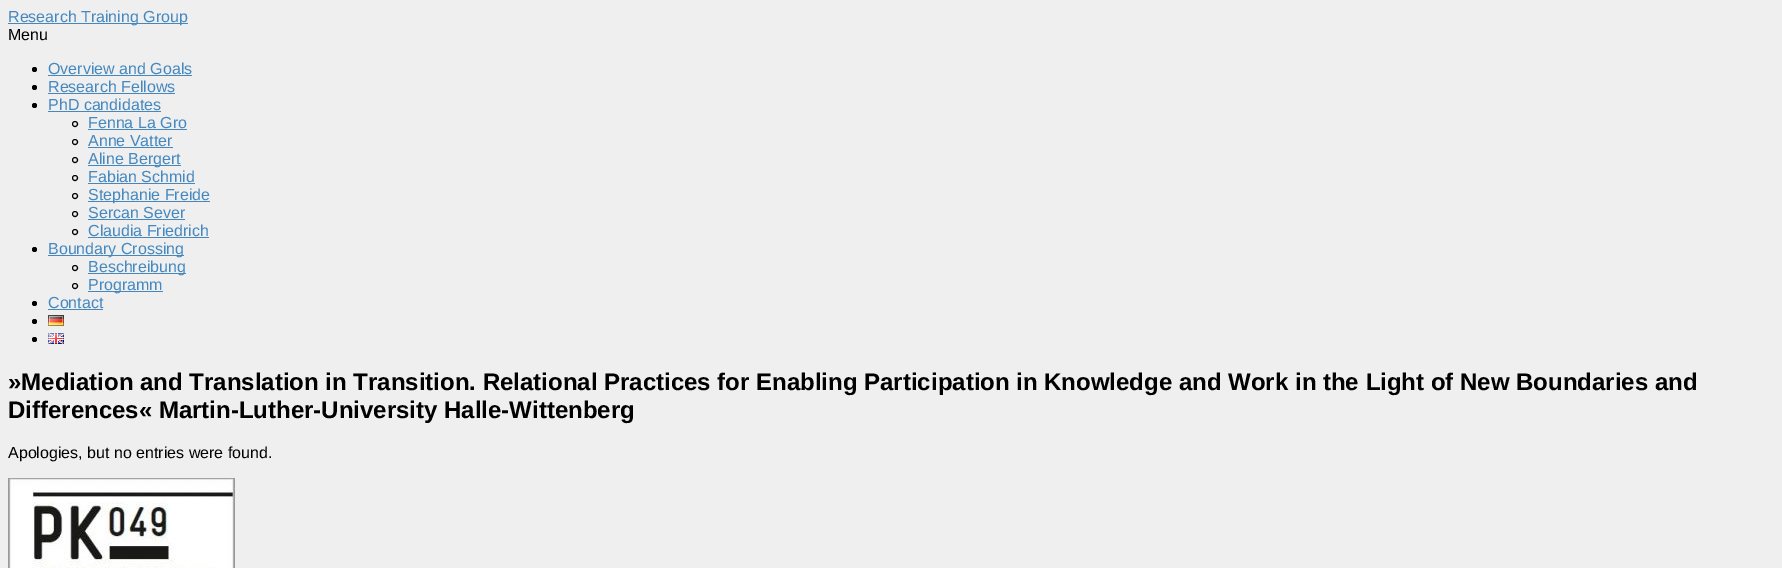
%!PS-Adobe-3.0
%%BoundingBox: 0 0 1782 568
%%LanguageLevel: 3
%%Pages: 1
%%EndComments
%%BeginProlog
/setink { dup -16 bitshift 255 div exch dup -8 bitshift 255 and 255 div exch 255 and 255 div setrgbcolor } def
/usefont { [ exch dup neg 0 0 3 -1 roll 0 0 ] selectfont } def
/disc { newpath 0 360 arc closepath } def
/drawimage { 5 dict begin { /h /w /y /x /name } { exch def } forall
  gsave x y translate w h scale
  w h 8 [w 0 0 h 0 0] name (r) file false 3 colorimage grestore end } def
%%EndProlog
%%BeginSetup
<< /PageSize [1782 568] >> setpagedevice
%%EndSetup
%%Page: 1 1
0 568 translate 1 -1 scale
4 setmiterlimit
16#EFEFEF setink
0 0 1782 568 rectfill
16#4488BF setink
8 23 180 1 rectfill
/LiberationSans-Regular 16 usefont
8 22 moveto (Research Training Group) show
16#000000 setink
8 40 moveto (Menu) show
34.5 69.5 2.5 disc fill
16#4488BF setink
48 74 moveto (Overview and Goals) show
48 75 144 1 rectfill
16#000000 setink
34.5 87.5 2.5 disc fill
16#4488BF setink
48 92 moveto (Research Fellows) show
48 93 127 1 rectfill
16#000000 setink
34.5 105.5 2.5 disc fill
16#4488BF setink
48 110 moveto (PhD candidates) show
48 111 113 1 rectfill
16#000000 setink
75 124 2.5 disc stroke
16#4488BF setink
88 128 moveto (Fenna La Gro) show
88 129 99 1 rectfill
16#000000 setink
75 142 2.5 disc stroke
16#4488BF setink
88 146 moveto (Anne Vatter) show
88 147 85 1 rectfill
16#000000 setink
75 160 2.5 disc stroke
16#4488BF setink
88 165 93 1 rectfill
88 164 moveto (Aline Bergert) show
16#000000 setink
75 178 2.5 disc stroke
16#4488BF setink
88 182 moveto (Fabian Schmid) show
88 183 107 1 rectfill
16#000000 setink
75 196 2.5 disc stroke
16#4488BF setink
88 201 122 1 rectfill
88 200 moveto (Stephanie Freide) show
16#000000 setink
75 214 2.5 disc stroke
16#4488BF setink
88 218 moveto (Sercan Sever) show
88 219 97 1 rectfill
16#000000 setink
75 232 2.5 disc stroke
16#4488BF setink
88 236 moveto (Claudia Friedrich) show
88 237 121 1 rectfill
16#000000 setink
34.5 249.5 2.5 disc fill
16#4488BF setink
48 255 136 1 rectfill
48 254 moveto (Boundary Crossing) show
16#000000 setink
75 268 2.5 disc stroke
16#4488BF setink
88 273 98 1 rectfill
88 272 moveto (Beschreibung) show
16#000000 setink
75 286 2.5 disc stroke
16#4488BF setink
88 291 75 1 rectfill
88 290 moveto (Programm) show
16#000000 setink
34.5 303.5 2.5 disc fill
16#4488BF setink
48 308 moveto (Contact) show
48 309 55 1 rectfill
16#000000 setink
34.5 321.5 2.5 disc fill
(img1.raw) 48 315 16 11 drawimage
34.5 339.5 2.5 disc fill
(img2.raw) 48 333 16 11 drawimage
/LiberationSans-Bold 24 usefont
8 390 moveto (»Mediation and Translation in Transition. Relational Practices for Enabling Participation in Knowledge and Work in the Light of New Boundaries and) show
8 418 moveto (Differences« Martin-Luther-University Halle-Wittenberg) show
/LiberationSans-Regular 16 usefont
8 458 moveto (Apologies, but no entries were found.) show
(img3.raw) 8 478 227 90 drawimage
showpage
%%EOF
